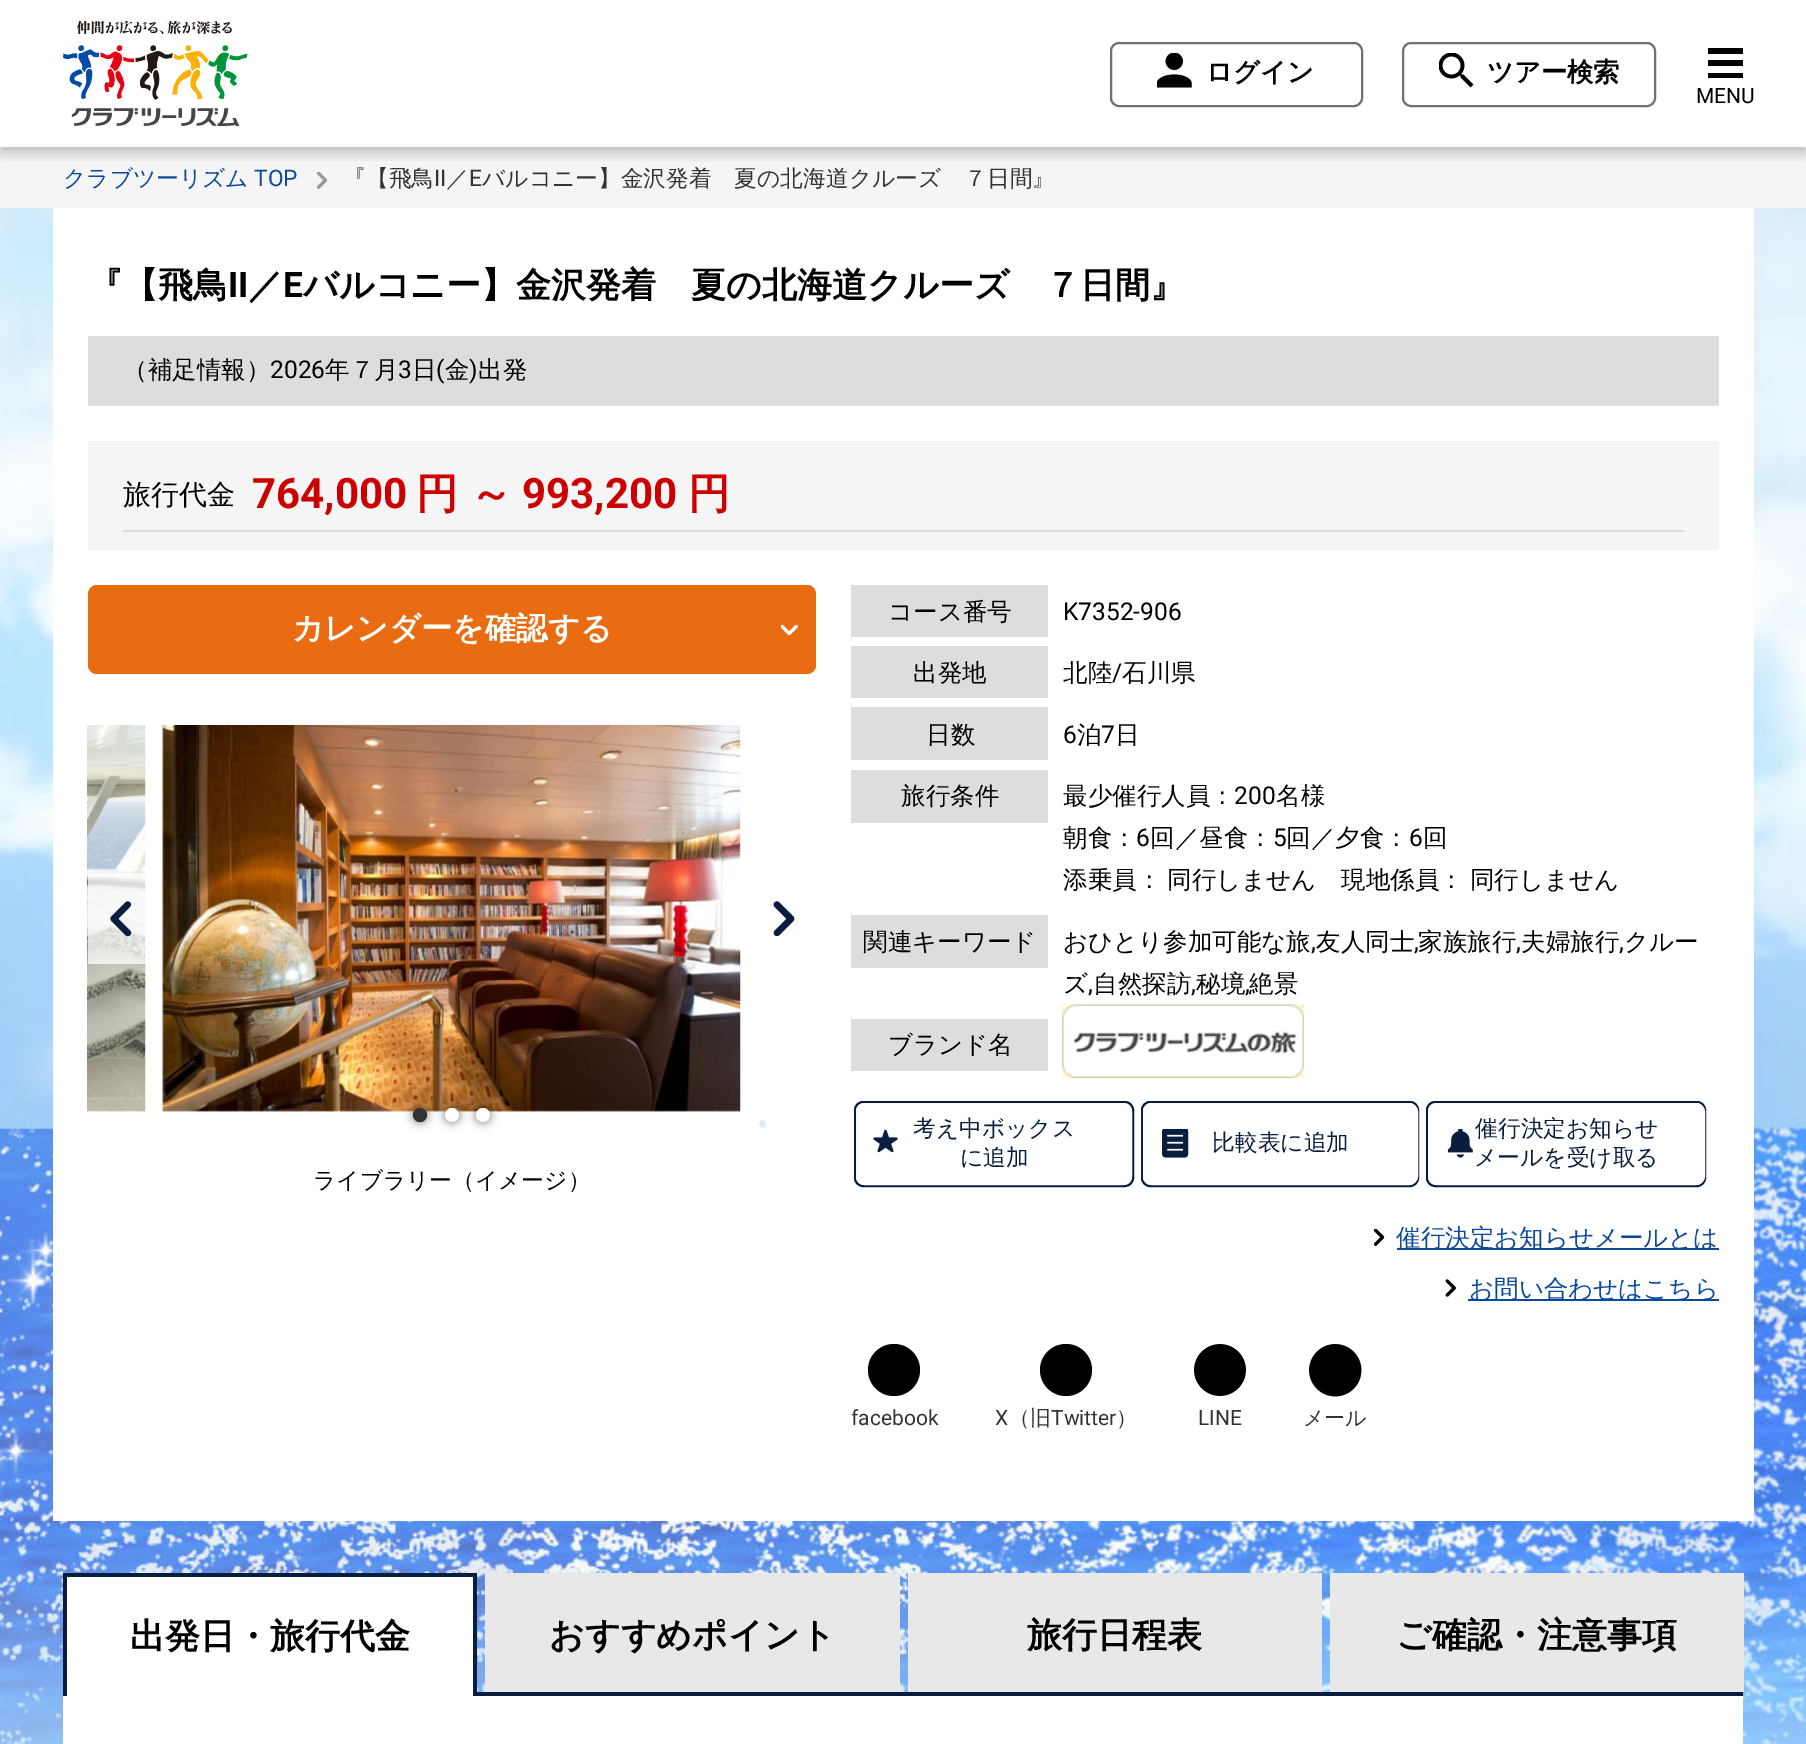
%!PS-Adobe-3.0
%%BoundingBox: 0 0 1806 1744
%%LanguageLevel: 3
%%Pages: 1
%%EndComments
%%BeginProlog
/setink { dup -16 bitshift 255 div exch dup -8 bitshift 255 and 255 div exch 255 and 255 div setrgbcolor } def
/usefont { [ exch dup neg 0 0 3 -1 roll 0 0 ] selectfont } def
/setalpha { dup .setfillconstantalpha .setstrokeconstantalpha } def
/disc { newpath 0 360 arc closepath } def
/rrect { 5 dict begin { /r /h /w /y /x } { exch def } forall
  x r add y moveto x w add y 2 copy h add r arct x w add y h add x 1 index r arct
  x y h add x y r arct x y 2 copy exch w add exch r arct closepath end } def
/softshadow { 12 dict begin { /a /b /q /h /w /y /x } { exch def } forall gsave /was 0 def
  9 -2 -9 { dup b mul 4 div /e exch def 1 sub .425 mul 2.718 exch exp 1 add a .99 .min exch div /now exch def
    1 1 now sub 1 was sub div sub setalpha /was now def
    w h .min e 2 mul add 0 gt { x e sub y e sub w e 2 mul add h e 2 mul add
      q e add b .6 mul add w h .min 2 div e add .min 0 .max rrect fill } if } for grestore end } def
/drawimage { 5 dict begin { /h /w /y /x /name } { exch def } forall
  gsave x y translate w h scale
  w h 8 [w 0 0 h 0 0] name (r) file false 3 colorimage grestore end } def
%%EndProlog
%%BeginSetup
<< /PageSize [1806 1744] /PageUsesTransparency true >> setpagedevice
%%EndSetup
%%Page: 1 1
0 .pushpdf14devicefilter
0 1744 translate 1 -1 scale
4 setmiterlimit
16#FFFFFF setink
0 0 1806 1744 rectfill
16#F5F5F5 setink
0 147 1806 62 rectfill
(img4.raw) 316 172 12 17 drawimage
gsave
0 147 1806 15 rectclip
16#000000 setink
0 5 1806 147 0 7 0.25 softshadow
grestore
(img1.raw) 63 21 185 105 drawimage
16#707070 setink
2 setlinewidth
1111 43 251 63 8 rrect stroke
(img2.raw) 1157 53 35 35 drawimage
/WenQuanYiZenHei-Bold 26.25 usefont
16#000000 setink
1206 81 moveto (ログイン) show
16#707070 setink
1403 43 252 63 8 rrect stroke
(img3.raw) 1439 53 35 35 drawimage
16#000000 setink
1487 81 moveto (ツアー検索) show
[
    [1708 48 35 6 16#000000]
    [1708 73 35 5 16#000000]
    [1708 60 35 6 16#000000]
] { aload pop setink rectfill } forall
/Roboto-Regular 21 usefont
1696 103 moveto (MENU) show
/WenQuanYiZenHei-Medium 22.75 usefont
16#0B499D setink
63 186 moveto (クラブツーリズム) show
/Roboto-Regular 22.75 usefont
254 186 moveto (TOP) show
/WenQuanYiZenHei-Medium 22.75 usefont
16#333333 setink
343 186 moveto (『【飛鳥) show
/Roboto-Regular 22.75 usefont
434 186 moveto (II) show
/WenQuanYiZenHei-Medium 22.75 usefont
446 186 moveto (／) show
/Roboto-Regular 22.75 usefont
469 186 moveto (E) show
/WenQuanYiZenHei-Medium 22.75 usefont
482 186 moveto (バルコニー】金沢発着　夏の北海道クルーズ　７日間』) show
(img5.raw) 0 208 1806 1536 drawimage
16#FFFFFF setink
53 208 1701 1313 rectfill
/WenQuanYiZenHei-Bold 35 usefont
16#000000 setink
88 297 moveto (『【飛鳥) show
/Roboto-Bold 35 usefont
228 297 moveto (II) show
/WenQuanYiZenHei-Bold 35 usefont
248 297 moveto (／) show
/Roboto-Bold 35 usefont
283 297 moveto (E) show
/WenQuanYiZenHei-Bold 35 usefont
303 297 moveto (バルコニー】金沢発着　夏の北海道クルーズ　７日間』) show
16#DDDDDD setink
88 336 1631 70 rectfill
/WenQuanYiZenHei-Medium 24.5 usefont
16#000000 setink
123 378 moveto (（補足情報）) show
/Roboto-Regular 24.5 usefont
270 378 moveto (2026) show
/WenQuanYiZenHei-Medium 24.5 usefont
325 378 moveto (年７月) show
/Roboto-Regular 24.5 usefont
398 378 moveto (3) show
/WenQuanYiZenHei-Medium 24.5 usefont
412 378 moveto (日) show
/Roboto-Regular 24.5 usefont
436 378 moveto (\() show
/WenQuanYiZenHei-Medium 24.5 usefont
445 378 moveto (金) show
/Roboto-Regular 24.5 usefont
469 378 moveto (\)) show
/WenQuanYiZenHei-Medium 24.5 usefont
478 378 moveto (出発) show
16#F5F5F5 setink
88 441 1631 109 rectfill
16#DDDDDD setink
123 530 1561 2 rectfill
/WenQuanYiZenHei-Medium 28 usefont
16#000000 setink
123 504 moveto (旅行代金) show
/Roboto-Bold 42 usefont
16#CC0000 setink
252 508 moveto (764,000) show
/WenQuanYiZenHei-Bold 42 usefont
416 508 moveto -1 0 32 (円 ～) widthshow
/Roboto-Bold 42 usefont
522 508 moveto (993,200) show
/WenQuanYiZenHei-Bold 42 usefont
688 508 moveto (円) show
16#E96C12 setink
88 585 728 89 9 rrect fill
/WenQuanYiZenHei-Bold 31.5 usefont
16#FFFFFF setink
292 639 moveto (カレンダーを確認する) show
(img6.raw) 781 624 17 12 drawimage
(img7.raw) 87 725 59 387 drawimage
(img8.raw) 162 725 579 387 drawimage
(img9.raw) 758 1119 9 10 drawimage
0.75 setalpha
88 873 moveto 143 873 lineto 148 873 152 877 152 882 curveto 152 955 lineto 152 960 148 964 143 964 curveto 88 964 lineto closepath fill
1 setalpha
(img10.raw) 110 901 22 35 drawimage
(img11.raw) 773 901 22 35 drawimage
16#000000 setink
413 1108 14 14 7 4.5 0.5 softshadow
16#333333 setink
420 1115 7 disc fill
16#000000 setink
445 1108 14 14 7 4.5 0.5 softshadow
16#FFFFFF setink
452 1115 7 disc fill
16#000000 setink
476 1108 14 14 7 4.5 0.5 softshadow
16#FFFFFF setink
483 1115 7 disc fill
/WenQuanYiZenHei-Medium 22.75 usefont
16#000000 setink
313 1188 moveto (ライブラリー（イメージ）) show
16#DDDDDD setink
851 585 197 52 rectfill
/WenQuanYiZenHei-Medium 24.5 usefont
16#000000 setink
888 620 moveto (コース番号) show
/Roboto-Regular 24.5 usefont
1063 620 moveto (K7352-906) show
16#DDDDDD setink
851 646 197 52 rectfill
/WenQuanYiZenHei-Medium 24.5 usefont
16#000000 setink
913 681 moveto (出発地) show
1063 681 moveto (北陸) show
/Roboto-Regular 24.5 usefont
1112 681 moveto (/) show
/WenQuanYiZenHei-Medium 24.5 usefont
1122 681 moveto (石川県) show
16#DDDDDD setink
851 707 197 53 rectfill
16#000000 setink
926 743 moveto (日数) show
/Roboto-Regular 24.5 usefont
1063 743 moveto (6) show
/WenQuanYiZenHei-Medium 24.5 usefont
1077 743 moveto (泊) show
/Roboto-Regular 24.5 usefont
1101 743 moveto (7) show
/WenQuanYiZenHei-Medium 24.5 usefont
1115 743 moveto (日) show
16#DDDDDD setink
851 770 197 53 rectfill
16#000000 setink
901 804 moveto (旅行条件) show
1063 804 moveto (最少催行人員：) show
/Roboto-Regular 24.5 usefont
1234 804 moveto (200) show
/WenQuanYiZenHei-Medium 24.5 usefont
1276 804 moveto (名様) show
1063 846 moveto (朝食：) show
/Roboto-Regular 24.5 usefont
1136 846 moveto (6) show
/WenQuanYiZenHei-Medium 24.5 usefont
1150 846 moveto (回／昼食：) show
/Roboto-Regular 24.5 usefont
1273 846 moveto (5) show
/WenQuanYiZenHei-Medium 24.5 usefont
1286 846 moveto (回／夕食：) show
/Roboto-Regular 24.5 usefont
1409 846 moveto (6) show
/WenQuanYiZenHei-Medium 24.5 usefont
[
    [(回) 1423 846]
    [(添乗員：) 1063 888]
    [(同行しません) 1167 888]
] { aload pop moveto show } forall
1341 888 moveto -1 0 32 (現地係員： 同行しません) widthshow
16#DDDDDD setink
851 915 197 53 rectfill
16#000000 setink
863 950 moveto (関連キーワード) show
1063 950 moveto (おひとり参加可能な旅) show
/Roboto-Regular 24.5 usefont
1311 950 moveto (,) show
/WenQuanYiZenHei-Medium 24.5 usefont
1316 950 moveto (友人同士) show
/Roboto-Regular 24.5 usefont
1414 950 moveto (,) show
/WenQuanYiZenHei-Medium 24.5 usefont
1418 950 moveto (家族旅行) show
/Roboto-Regular 24.5 usefont
1516 950 moveto (,) show
/WenQuanYiZenHei-Medium 24.5 usefont
1521 950 moveto (夫婦旅行) show
/Roboto-Regular 24.5 usefont
1619 950 moveto (,) show
/WenQuanYiZenHei-Medium 24.5 usefont
1624 950 moveto (クルー) show
1063 992 moveto (ズ) show
/Roboto-Regular 24.5 usefont
1088 992 moveto (,) show
/WenQuanYiZenHei-Medium 24.5 usefont
1093 992 moveto (自然探訪) show
/Roboto-Regular 24.5 usefont
1191 992 moveto (,) show
/WenQuanYiZenHei-Medium 24.5 usefont
1196 992 moveto (秘境) show
/Roboto-Regular 24.5 usefont
1245 992 moveto (,) show
/WenQuanYiZenHei-Medium 24.5 usefont
1249 992 moveto (絶景) show
16#DDDDDD setink
851 1019 197 52 rectfill
16#000000 setink
888 1053 moveto (ブランド名) show
(img12.raw) 1062 1004 242 74 drawimage
16#091D3E setink
855 1102 278 84 8 rrect stroke
16#FFFFFF setink
857 1104 274 80 8 rrect stroke
(img13.raw) 873 1129 25 24 drawimage
/WenQuanYiZenHei-Medium 22.75 usefont
16#091D3E setink
913 1136 moveto (考え中ボックス) show
960 1165 moveto (に追加) show
1142 1102 276 84 8 rrect stroke
16#FFFFFF setink
1144 1104 273 80 8 rrect stroke
(img14.raw) 1162 1129 27 29 drawimage
16#091D3E setink
1212 1150 moveto (比較表に追加) show
1427 1102 278 84 8 rrect stroke
16#FFFFFF setink
1429 1104 275 80 8 rrect stroke
(img15.raw) 1447 1129 26 29 drawimage
16#091D3E setink
1475 1136 moveto (催行決定お知らせ) show
1474 1165 moveto (メールを受け取る) show
(img16.raw) 1373 1229 12 17 drawimage
16#0B499D setink
1397 1248 322 2 rectfill
/WenQuanYiZenHei-Medium 24.5 usefont
1396 1246 moveto (催行決定お知らせメールとは) show
(img17.raw) 1445 1279 11 18 drawimage
1468 1299 251 2 rectfill
1469 1297 moveto (お問い合わせはこちら) show
16#000000 setink
894 1370 26 disc fill
/Roboto-Regular 21 usefont
16#333333 setink
851 1425 moveto (facebook) show
16#000000 setink
1066 1370 26 disc fill
16#333333 setink
995 1425 moveto (X) show
/WenQuanYiZenHei-Medium 21 usefont
1009 1425 moveto (（旧) show
/Roboto-Regular 21 usefont
1051 1425 moveto (Twitter) show
/WenQuanYiZenHei-Medium 21 usefont
1116 1425 moveto (）) show
(img18.raw) 1194 1344 52 52 drawimage
/Roboto-Regular 21 usefont
1198 1425 moveto (LINE) show
(img19.raw) 1309 1344 53 53 drawimage
/WenQuanYiZenHei-Medium 21 usefont
1303 1425 moveto (メール) show
[
    [477 1692 1266 4 16#091D3E]
    [67 1577 406 119 16#FFFFFF]
    [63 1573 413 4 16#091D3E]
    [473 1573 4 123 16#091D3E]
    [63 1573 4 123 16#091D3E]
] { aload pop setink rectfill } forall
/WenQuanYiZenHei-Bold 35 usefont
16#000000 setink
130 1648 moveto (出発日・旅行代金) show
16#E8E8E8 setink
485 1573 415 119 rectfill
16#000000 setink
549 1647 moveto (おすすめポイント) show
16#E8E8E8 setink
908 1573 414 119 rectfill
16#000000 setink
1027 1647 moveto (旅行日程表) show
16#E8E8E8 setink
1330 1573 414 119 rectfill
16#000000 setink
1396 1647 moveto (ご確認・注意事項) show
16#FFFFFF setink
63 1696 1680 48 rectfill
.poppdf14devicefilter showpage
%%EOF
